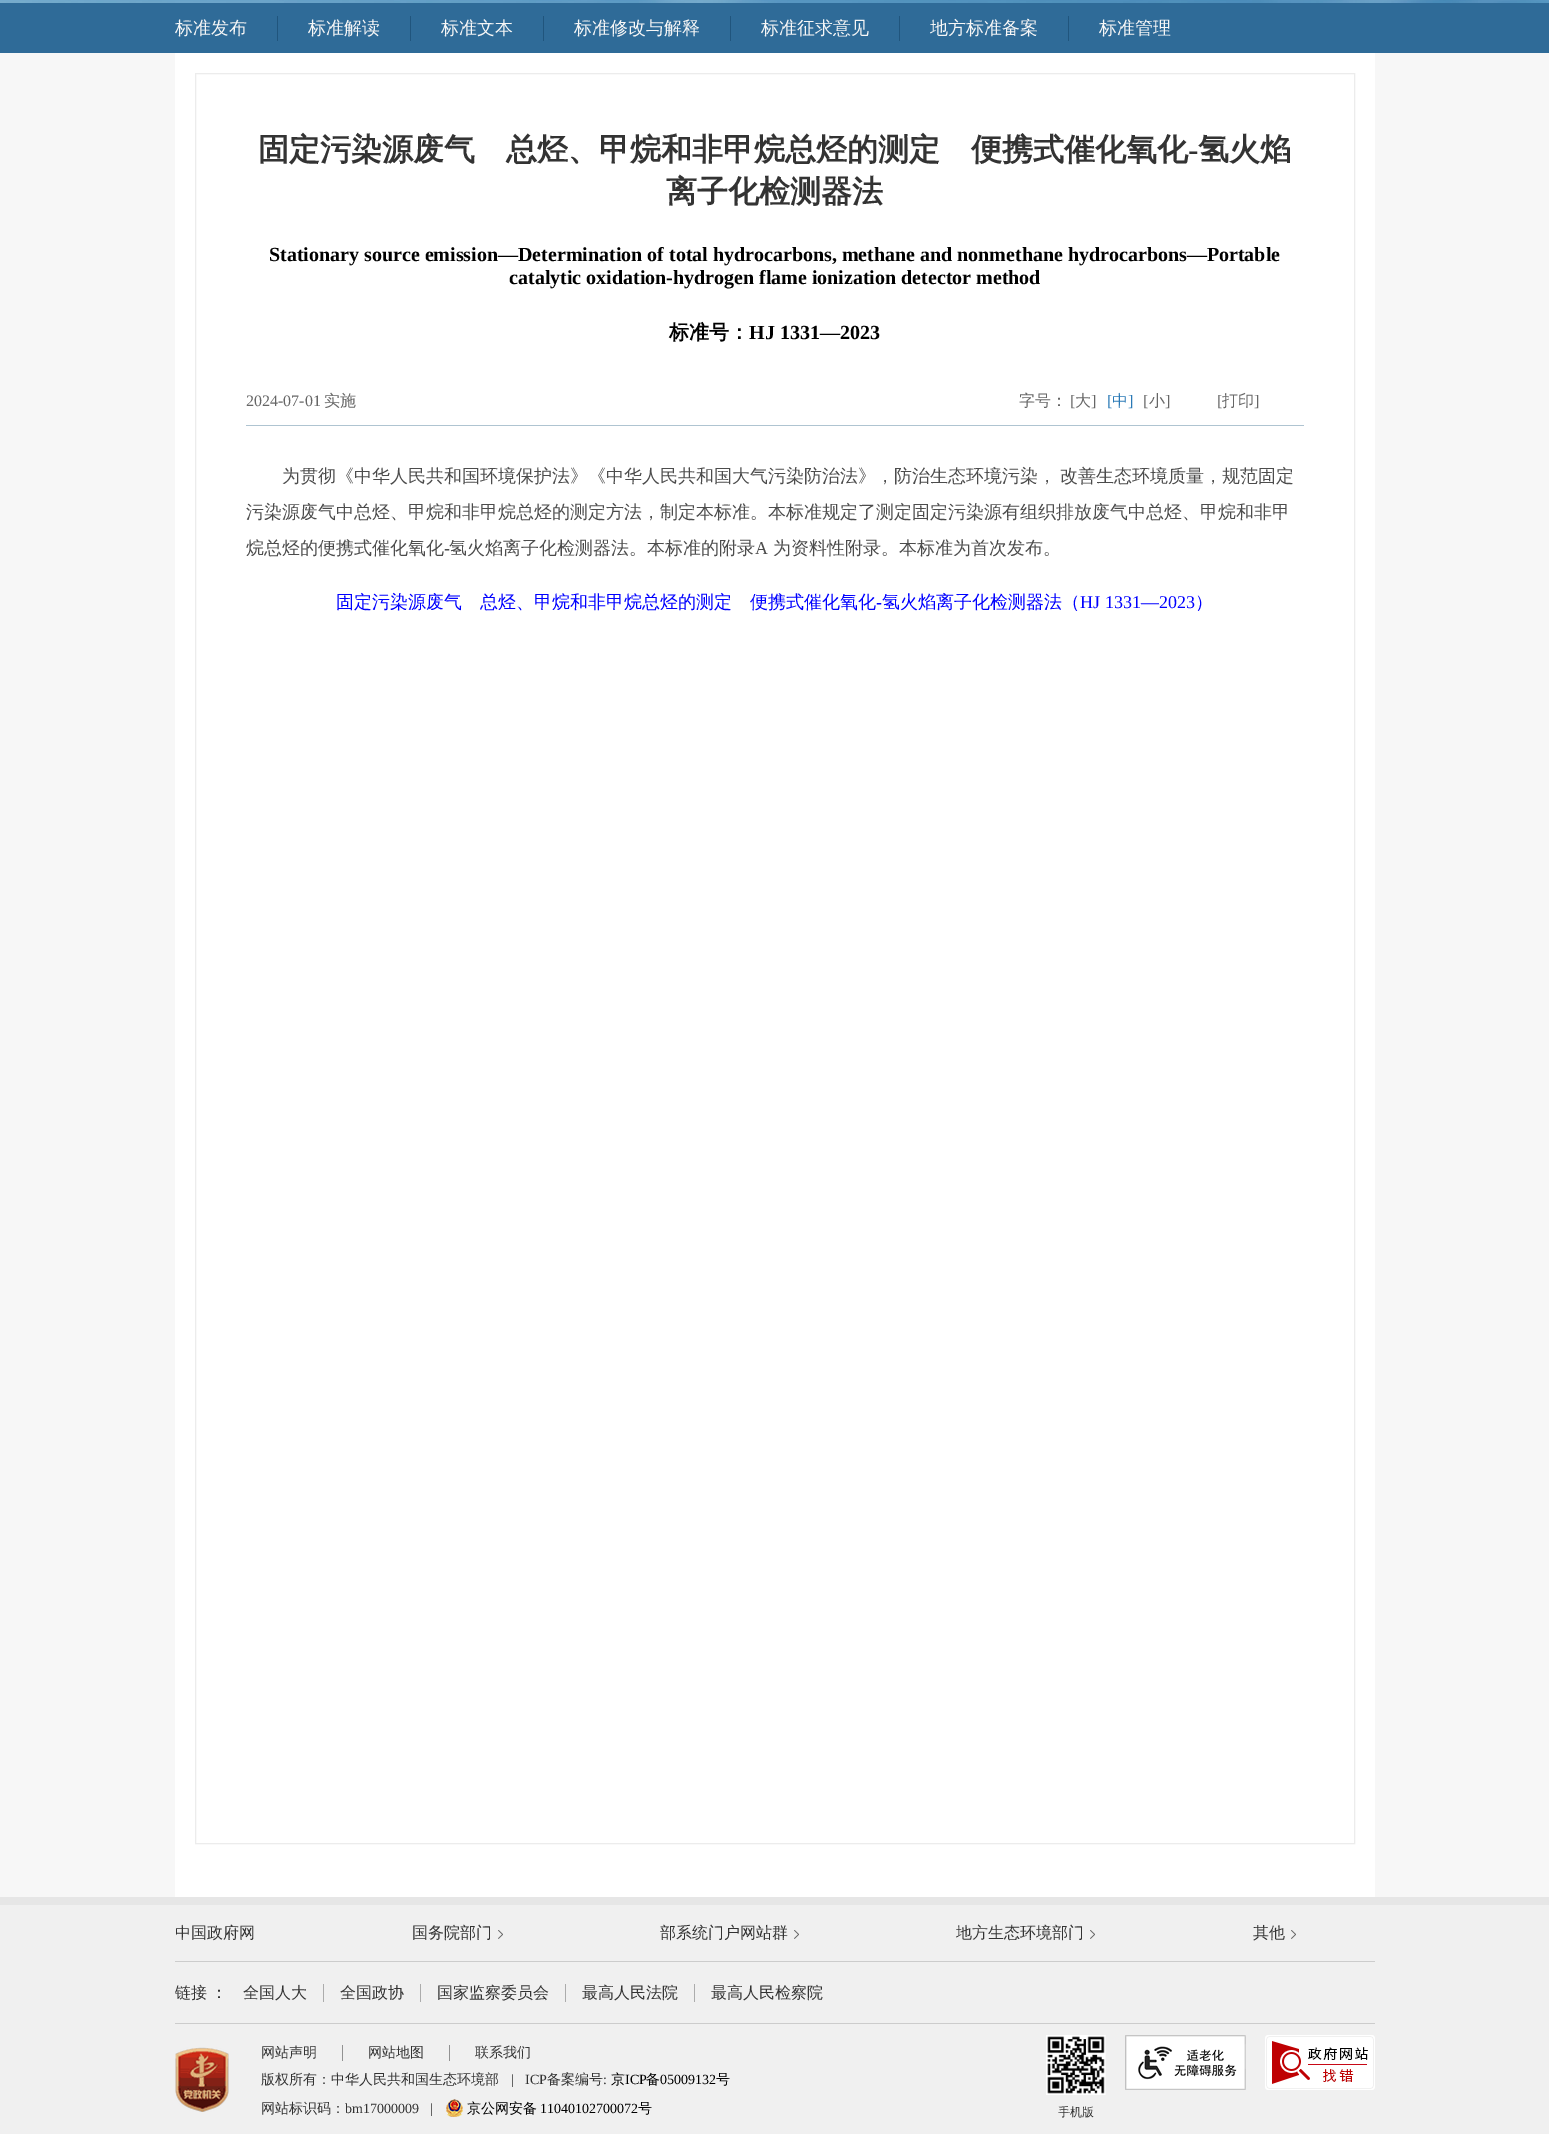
%!PS-Adobe-3.0
%%BoundingBox: 0 0 1549 2134
%%LanguageLevel: 3
%%Pages: 1
%%EndComments
%%BeginProlog
/setink { dup -16 bitshift 255 div exch dup -8 bitshift 255 and 255 div exch 255 and 255 div setrgbcolor } def
/usefont { [ exch dup neg 0 0 3 -1 roll 0 0 ] selectfont } def
/drawimage { 5 dict begin { /h /w /y /x /name } { exch def } forall
  gsave x y translate w h scale
  w h 8 [w 0 0 h 0 0] name (r) file false 3 colorimage grestore end } def
%%EndProlog
%%BeginSetup
<< /PageSize [1549 2134] >> setpagedevice
%%EndSetup
%%Page: 1 1
0 2134 translate 1 -1 scale
4 setmiterlimit
16#F7F7F7 setink
0 0 1549 2134 rectfill
(img1.raw) 0 0 1549 3 drawimage
16#2F6B98 setink
0 3 1549 50 rectfill
16#20557D setink
277 16 1 25 rectfill
/WenQuanYiZenHei-Medium 18 usefont
16#F7F7F7 setink
175 34 moveto (标准发布) show
16#20557D setink
410 16 1 25 rectfill
16#F7F7F7 setink
308 34 moveto (标准解读) show
16#20557D setink
543 16 1 25 rectfill
16#F7F7F7 setink
441 34 moveto (标准文本) show
16#20557D setink
730 16 1 25 rectfill
16#F7F7F7 setink
574 34 moveto (标准修改与解释) show
16#20557D setink
899 16 1 25 rectfill
16#F7F7F7 setink
761 34 moveto (标准征求意见) show
16#20557D setink
1068 16 1 25 rectfill
16#F7F7F7 setink
930 34 moveto (地方标准备案) show
1099 34 moveto (标准管理) show
16#FFFFFF setink
175 53 1200 1844 rectfill
16#ECECEC setink
195.5 73.5 1159 1770 rectstroke
/WenQuanYiZenHei-Bold 31 usefont
16#333333 setink
258 160 moveto (固定污染源废气　总烃、甲烷和非甲烷总烃的测定　便携式催化氧化) show
/LiberationSerif-Bold 31 usefont
1188 160 moveto (-) show
/WenQuanYiZenHei-Bold 31 usefont
1198 160 moveto (氢火焰) show
666 202 moveto (离子化检测器法) show
/LiberationSerif-Bold 20 usefont
16#000000 setink
269 261 moveto (Stationary source emission—Determination of total hydrocarbons, methane and nonmethane hydrocarbons—Portable) show
509 284 moveto (catalytic oxidation-hydrogen flame ionization detector method) show
/WenQuanYiZenHei-Bold 20 usefont
669 339 moveto (标准号：) show
/LiberationSerif-Bold 20 usefont
749 339 moveto (HJ 1331—2023) show
16#AFC4D1 setink
246 425 1058 1 rectfill
/LiberationSerif-Regular 16 usefont
16#666666 setink
246 406 moveto (2024-07-01) show
/WenQuanYiZenHei-Medium 16 usefont
324 406 moveto (实施) show
1019 406 moveto (字号：) show
/LiberationSerif-Regular 16 usefont
1070 406 moveto ([) show
/WenQuanYiZenHei-Medium 16 usefont
1075 406 moveto (大) show
/LiberationSerif-Regular 16 usefont
1091 406 moveto (]) show
16#2979B6 setink
1107 406 moveto ([) show
/WenQuanYiZenHei-Medium 16 usefont
1112 406 moveto (中) show
/LiberationSerif-Regular 16 usefont
1128 406 moveto (]) show
16#666666 setink
1143 406 moveto ([) show
/WenQuanYiZenHei-Medium 16 usefont
1149 406 moveto (小) show
/LiberationSerif-Regular 16 usefont
1165 406 moveto (]) show
1217 406 moveto ([) show
/WenQuanYiZenHei-Medium 16 usefont
1222 406 moveto (打印) show
/LiberationSerif-Regular 16 usefont
1254 406 moveto (]) show
/WenQuanYiZenHei-Medium 18 usefont
16#4C4C4C setink
282 482 moveto -1 0 32 (为贯彻《中华人民共和国环境保护法》《中华人民共和国大气污染防治法》，防治生态环境污染， 改善生态环境质量，规范固定) widthshow
246 518 moveto (污染源废气中总烃、甲烷和非甲烷总烃的测定方法，制定本标准。本标准规定了测定固定污染源有组织排放废气中总烃、甲烷和非甲) show
246 554 moveto (烷总烃的便携式催化氧化) show
/LiberationSerif-Regular 18 usefont
444 554 moveto (-) show
/WenQuanYiZenHei-Medium 18 usefont
449 554 moveto (氢火焰离子化检测器法。本标准的附录) show
/LiberationSerif-Regular 18 usefont
755 554 moveto (A) show
/WenQuanYiZenHei-Medium 18 usefont
773 554 moveto (为资料性附录。本标准为首次发布。) show
16#0000FF setink
336 608 moveto (固定污染源废气　总烃、甲烷和非甲烷总烃的测定　便携式催化氧化) show
/LiberationSerif-Regular 18 usefont
876 608 moveto (-) show
/WenQuanYiZenHei-Medium 18 usefont
882 608 moveto (氢火焰离子化检测器法（) show
/LiberationSerif-Regular 18 usefont
1080 608 moveto (HJ 1331—2023) show
/WenQuanYiZenHei-Medium 18 usefont
1195 608 moveto (）) show
[
    [0 1905 1549 229 16#F0F0F0]
    [0 1897 1549 8 16#E6E6E6]
    [175 1961 1200 1 16#CCCCCC]
] { aload pop setink rectfill } forall
/WenQuanYiZenHei-Medium 16 usefont
16#333333 setink
175 1938 moveto (中国政府网) show
412 1938 moveto (国务院部门) show
(img2.raw) 498 1930 5 9 drawimage
660 1938 moveto (部系统门户网站群) show
(img2.raw) 794 1930 5 9 drawimage
956 1938 moveto (地方生态环境部门) show
(img2.raw) 1090 1930 5 9 drawimage
1253 1938 moveto (其他) show
(img2.raw) 1291 1930 5 9 drawimage
16#CCCCCC setink
175 2023 1200 1 rectfill
16#333333 setink
175 1998 moveto -1 0 32 (链接 ：) widthshow
16#ACACAC setink
323 1984 1 18 rectfill
16#333333 setink
243 1998 moveto (全国人大) show
16#ACACAC setink
420 1984 1 18 rectfill
16#333333 setink
340 1998 moveto (全国政协) show
16#ACACAC setink
565 1984 1 18 rectfill
16#333333 setink
437 1998 moveto (国家监察委员会) show
16#ACACAC setink
694 1984 1 18 rectfill
16#333333 setink
582 1998 moveto (最高人民法院) show
711 1998 moveto (最高人民检察院) show
(img3.raw) 175 2047 54 65 drawimage
16#929292 setink
342 2045 1 16 rectfill
/WenQuanYiZenHei-Medium 14 usefont
16#333333 setink
261 2057 moveto (网站声明) show
16#929292 setink
449 2045 1 16 rectfill
16#333333 setink
[
    [(网站地图) 368 2057]
    [(联系我们) 475 2057]
    [(版权所有：中华人民共和国生态环境部) 261 2084]
] { aload pop moveto show } forall
/LiberationSerif-Regular 14 usefont
511 2084 moveto (|) show
525 2084 moveto (ICP) show
/WenQuanYiZenHei-Medium 14 usefont
547 2084 moveto (备案编号) show
/LiberationSerif-Regular 14 usefont
603 2084 moveto (:) show
/WenQuanYiZenHei-Medium 14 usefont
16#000000 setink
611 2084 moveto (京) show
/LiberationSerif-Regular 14 usefont
625 2084 moveto (ICP) show
/WenQuanYiZenHei-Medium 14 usefont
646 2084 moveto (备) show
/LiberationSerif-Regular 14 usefont
660 2084 moveto (05009132) show
/WenQuanYiZenHei-Medium 14 usefont
716 2084 moveto (号) show
16#333333 setink
261 2113 moveto (网站标识码：) show
/LiberationSerif-Regular 14 usefont
345 2113 moveto (bm17000009) show
430 2113 moveto (|) show
(img4.raw) 446 2099 17 18 drawimage
/WenQuanYiZenHei-Medium 14 usefont
16#000000 setink
467 2113 moveto (京公网安备) show
/LiberationSerif-Regular 14 usefont
540 2113 moveto (11040102700072) show
/WenQuanYiZenHei-Medium 14 usefont
638 2113 moveto (号) show
(img5.raw) 1125 2035 121 55 drawimage
(img6.raw) 1265 2035 110 55 drawimage
(img7.raw) 1046 2035 60 60 drawimage
/WenQuanYiZenHei-Medium 12 usefont
16#333333 setink
1058 2116 moveto (手机版) show
showpage
%%EOF
